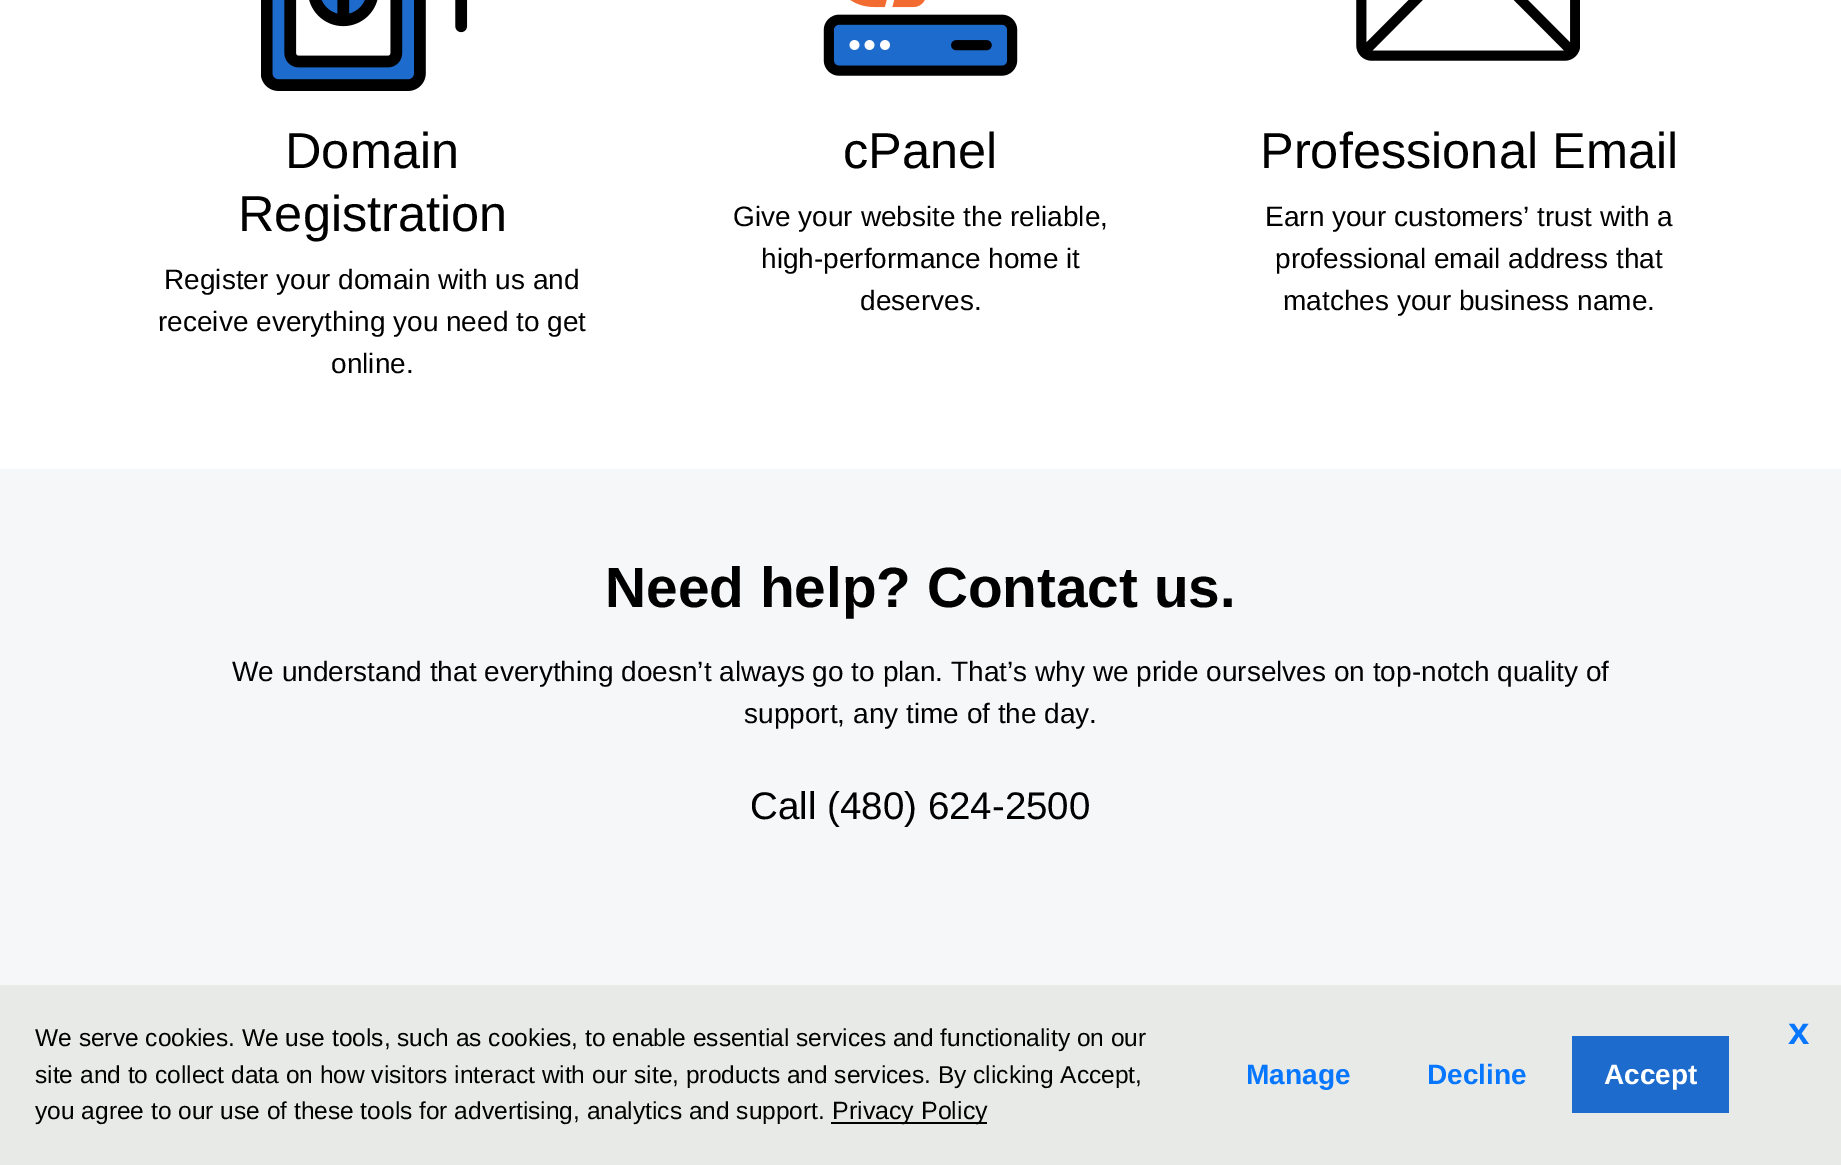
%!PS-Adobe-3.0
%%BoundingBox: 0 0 1841 1165
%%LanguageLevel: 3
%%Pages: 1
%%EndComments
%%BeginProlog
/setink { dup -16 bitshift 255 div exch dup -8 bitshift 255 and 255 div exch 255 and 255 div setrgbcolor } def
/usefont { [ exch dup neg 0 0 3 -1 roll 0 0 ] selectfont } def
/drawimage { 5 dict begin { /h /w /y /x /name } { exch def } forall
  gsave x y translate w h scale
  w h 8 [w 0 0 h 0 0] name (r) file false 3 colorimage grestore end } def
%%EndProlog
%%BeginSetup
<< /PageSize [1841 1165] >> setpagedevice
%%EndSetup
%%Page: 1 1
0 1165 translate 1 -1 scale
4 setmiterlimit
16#F5F7F8 setink
0 0 1841 1165 rectfill
16#FFFFFF setink
0 0 1841 469 rectfill
(img1.raw) 261 0 207 91 drawimage
/LiberationSans-Regular 50.5 usefont
16#000000 setink
285 168 moveto (Domain) show
238 231 moveto (Registration) show
/LiberationSans-Regular 28 usefont
[
    [(Register your domain with us and) 164 289]
    [(receive everything you need to get) 158 331]
    [(online.) 331 373]
] { aload pop moveto show } forall
(img2.raw) 823 0 195 76 drawimage
/LiberationSans-Regular 50.5 usefont
843 168 moveto (cPanel) show
/LiberationSans-Regular 28 usefont
[
    [(Give your website the reliable,) 733 226]
    [(high-performance home it) 761 268]
    [(deserves.) 860 310]
] { aload pop moveto show } forall
(img3.raw) 1356 0 224 61 drawimage
/LiberationSans-Regular 50.5 usefont
1260 168 moveto (Professional Email) show
/LiberationSans-Regular 28 usefont
[
    [(Earn your customers’ trust with a) 1265 226]
    [(professional email address that) 1275 268]
    [(matches your business name.) 1283 310]
] { aload pop moveto show } forall
/LiberationSans-Bold 56.75 usefont
605 607 moveto (Need help? Contact us.) show
/LiberationSans-Regular 28 usefont
232 681 moveto (We understand that everything doesn’t always go to plan. That’s why we pride ourselves on top-notch quality of) show
744 723 moveto (support, any time of the day.) show
/LiberationSans-Regular 38.5 usefont
750 819 moveto (Call \(480\) 624-2500) show
16#E8EAE8 setink
0 985 1841 180 rectfill
/LiberationSans-Regular 24.5 usefont
16#000000 setink
[
    [(We serve cookies. We use tools, such as cookies, to enable essential services and functionality on our) 35 1046]
    [(site and to collect data on how visitors interact with our site, products and services. By clicking Accept,) 35 1083]
    [(you agree to our use of these tools for advertising, analytics and support.) 35 1119]
] { aload pop moveto show } forall
831 1122 156 2 rectfill
/LiberationSans-Regular 25 usefont
832 1119 moveto (Privacy Policy) show
/LiberationSans-Bold 28 usefont
16#0877FF setink
1246 1084 moveto (Manage) show
1427 1084 moveto (Decline) show
16#1D6CCD setink
1572 1036 157 77 rectfill
16#FFFFFF setink
1604 1084 moveto (Accept) show
/LiberationSans-Bold 38.5 usefont
16#0877FF setink
1788 1044 moveto (x) show
showpage
%%EOF
